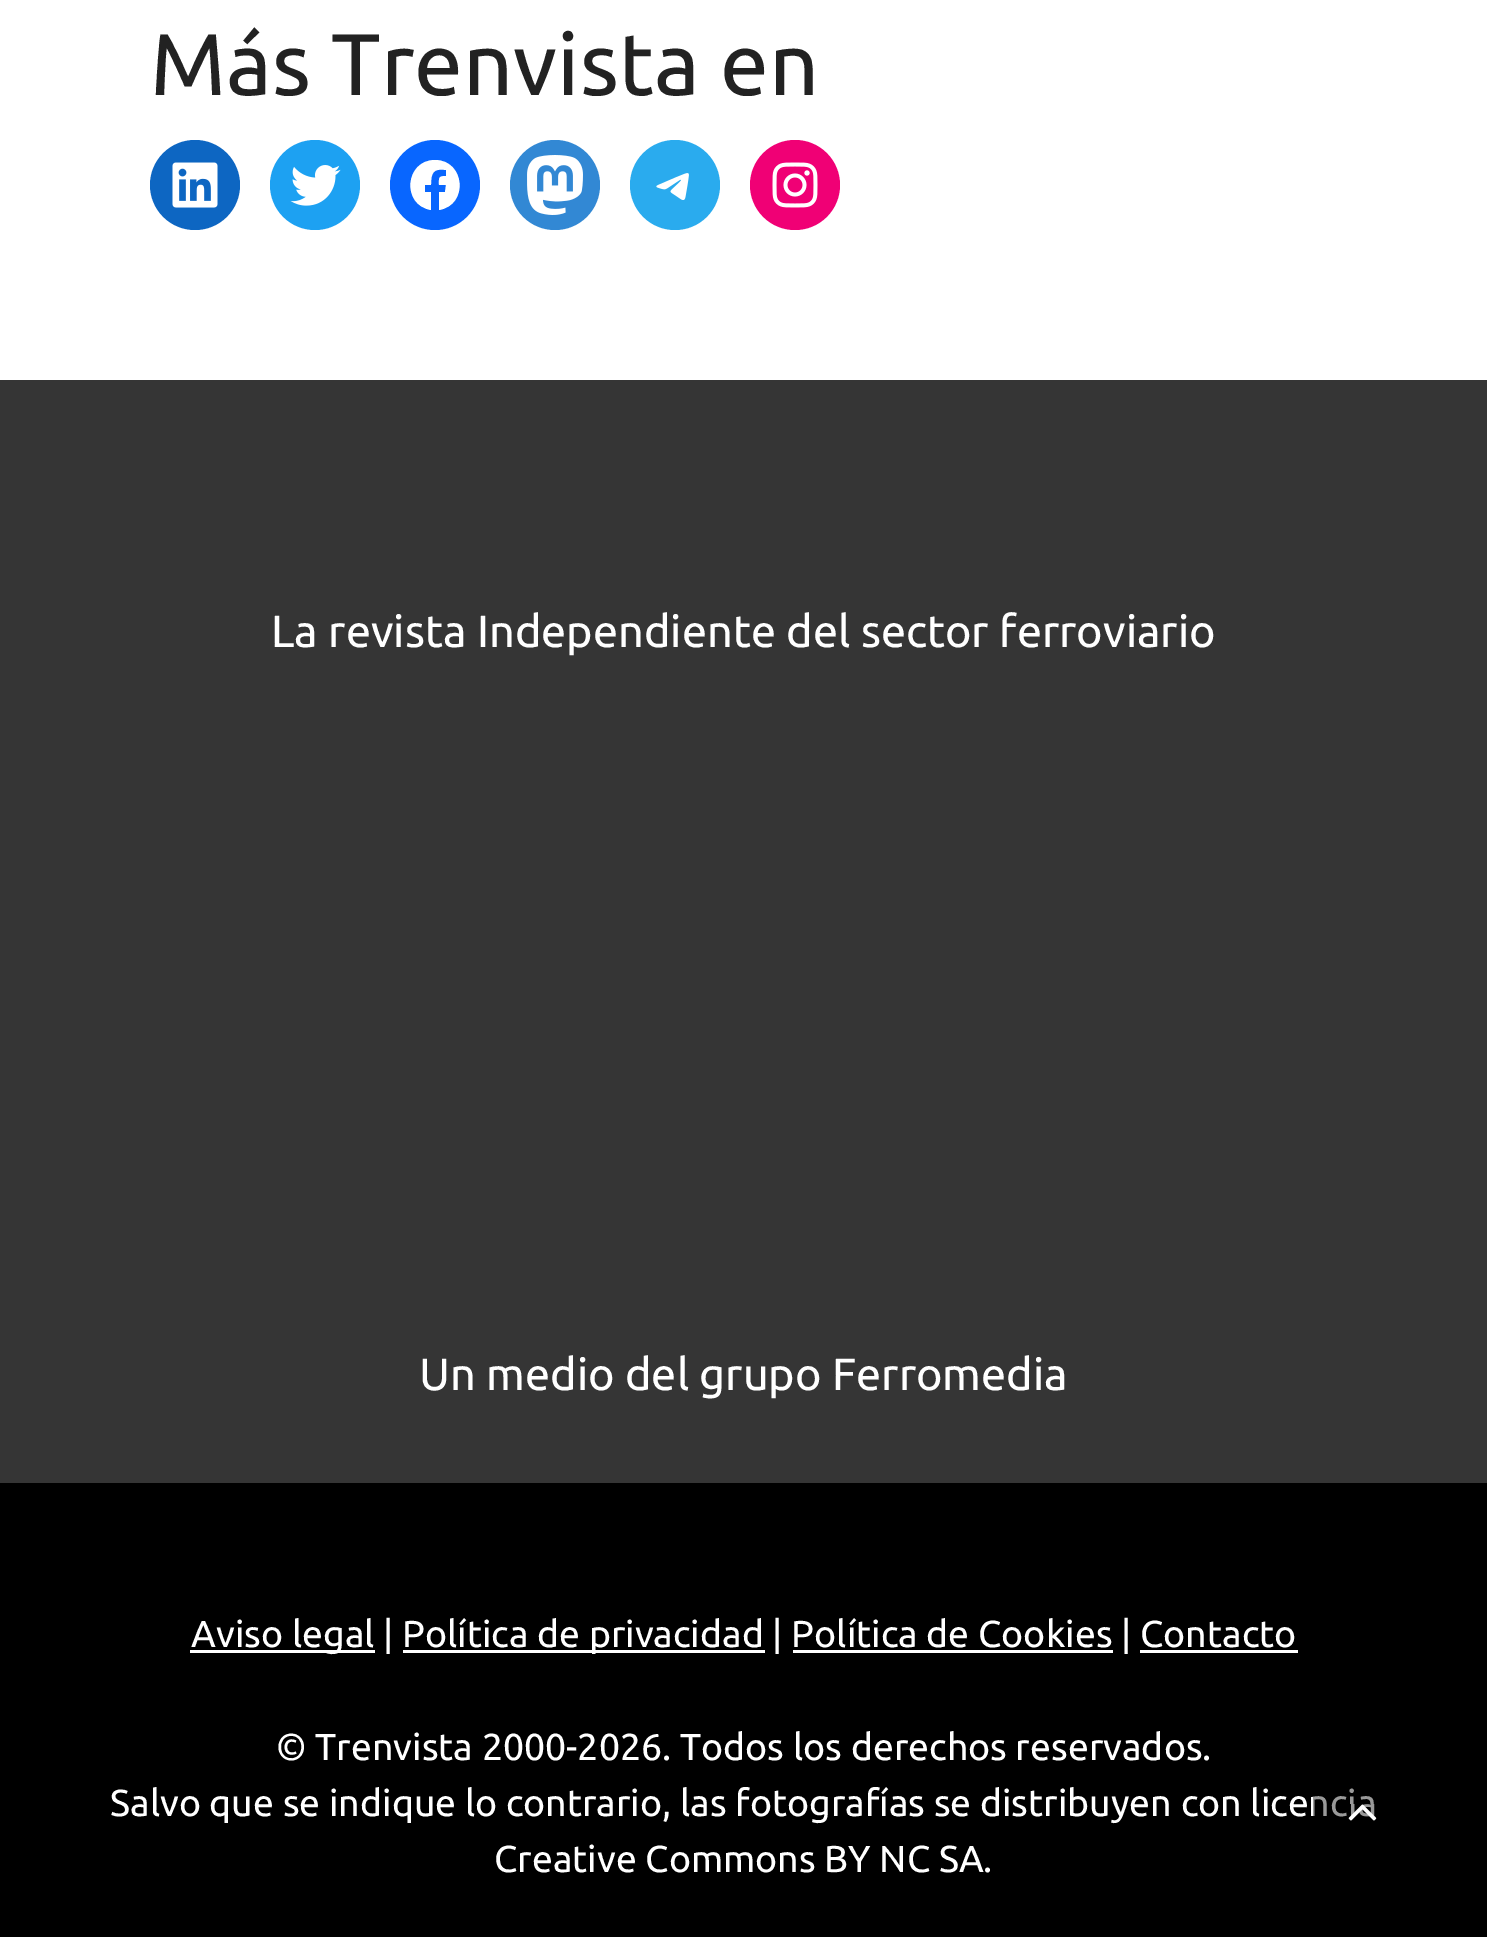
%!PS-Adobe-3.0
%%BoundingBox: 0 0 1487 1937
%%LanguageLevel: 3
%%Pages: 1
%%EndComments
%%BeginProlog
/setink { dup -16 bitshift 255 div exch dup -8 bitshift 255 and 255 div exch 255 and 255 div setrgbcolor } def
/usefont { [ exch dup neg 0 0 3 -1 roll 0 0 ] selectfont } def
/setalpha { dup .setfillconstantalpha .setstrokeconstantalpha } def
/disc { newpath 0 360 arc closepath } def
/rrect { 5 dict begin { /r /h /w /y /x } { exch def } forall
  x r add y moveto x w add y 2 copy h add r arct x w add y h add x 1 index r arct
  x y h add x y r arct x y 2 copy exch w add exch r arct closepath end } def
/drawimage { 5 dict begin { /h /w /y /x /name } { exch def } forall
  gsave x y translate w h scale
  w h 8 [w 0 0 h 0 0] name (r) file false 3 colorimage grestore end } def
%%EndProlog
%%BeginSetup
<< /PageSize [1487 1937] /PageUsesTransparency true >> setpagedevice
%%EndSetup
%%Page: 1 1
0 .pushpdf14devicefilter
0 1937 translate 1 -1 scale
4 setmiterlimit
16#FFFFFF setink
0 0 1487 1937 rectfill
/Ubuntu-Regular 87.5 usefont
16#222222 setink
150 95 moveto (Más Trenvista en) show
16#0D66C2 setink
195 185 45 disc fill
(img1.raw) 172 162 46 46 drawimage
16#1DA1F2 setink
315 185 45 disc fill
(img2.raw) 290 165 51 41 drawimage
16#0866FF setink
435 185 45 disc fill
16#FFFFFF setink
435 160 moveto 405 160 401 205 431 210 curveto 431 192 lineto 425 192 lineto 425 185 lineto 431 185 lineto 431 173 433 168 446 170 curveto 446 176 lineto 438 176 439 178 439 185 curveto 446 185 lineto 445 192 lineto 439 192 lineto 439 210 lineto 469 205 465 160 435 160 curveto closepath fill
16#3288D4 setink
555 185 45 disc fill
(img3.raw) 527 155 56 60 drawimage
16#2AABEE setink
675 185 45 disc fill
(img4.raw) 656 173 33 27 drawimage
16#F00075 setink
795 185 45 disc fill
(img5.raw) 772 162 46 46 drawimage
16#353535 setink
0 380 1487 1103 rectfill
/Ubuntu-Regular 45 usefont
16#FFFFFF setink
271 647 moveto (La revista Independiente del sector ferroviario) show
419 1390 moveto (Un medio del grupo Ferromedia) show
16#000000 setink
0 1483 1487 454 rectfill
16#FFFFFF setink
190 1650 185 3 rectfill
/Ubuntu-Regular 37.5 usefont
191 1647 moveto (Aviso legal |) show
403 1650 362 3 rectfill
402 1647 moveto (Política de privacidad | Política de Cookies | Contacto) show
793 1650 320 3 rectfill
1140 1650 158 3 rectfill
[
    [(© Trenvista 2000-2026. Todos los derechos reservados.) 276 1760]
    [(Salvo que se indique lo contrario, las fotografías se distribuyen con licencia) 110 1816]
    [(Creative Commons BY NC SA.) 494 1872]
] { aload pop moveto show } forall
0.4 setalpha
16#000000 setink
1313 1763 100 100 8 rrect fill
1 setalpha
(img6.raw) 1348 1804 29 17 drawimage
.poppdf14devicefilter showpage
%%EOF
